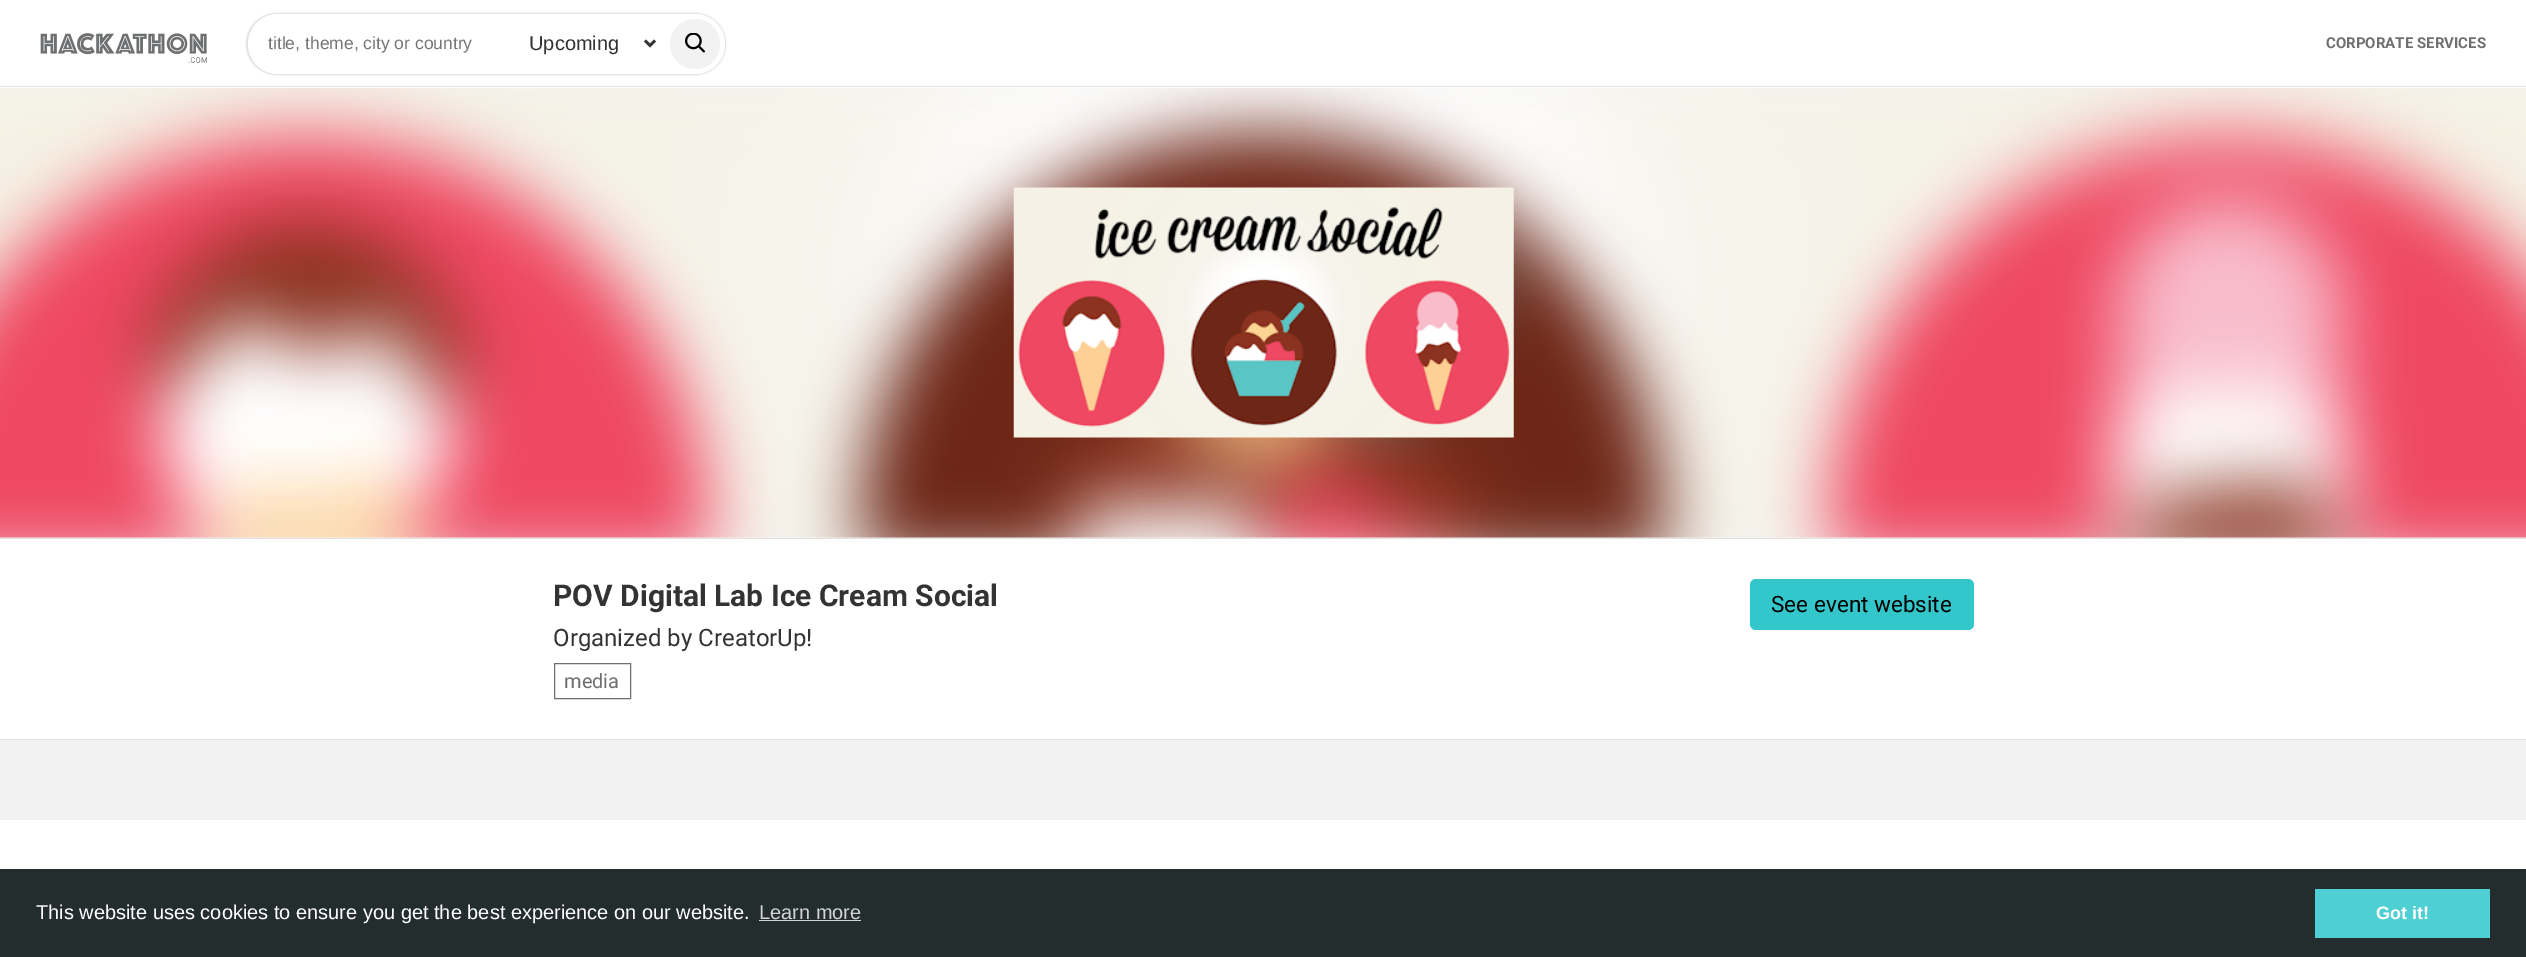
%!PS-Adobe-3.0
%%BoundingBox: 0 0 2526 957
%%LanguageLevel: 3
%%Pages: 1
%%EndComments
%%BeginProlog
/setink { dup -16 bitshift 255 div exch dup -8 bitshift 255 and 255 div exch 255 and 255 div setrgbcolor } def
/usefont { [ exch dup neg 0 0 3 -1 roll 0 0 ] selectfont } def
/setalpha { dup .setfillconstantalpha .setstrokeconstantalpha } def
/disc { newpath 0 360 arc closepath } def
/rrect { 5 dict begin { /r /h /w /y /x } { exch def } forall
  x r add y moveto x w add y 2 copy h add r arct x w add y h add x 1 index r arct
  x y h add x y r arct x y 2 copy exch w add exch r arct closepath end } def
/softshadow { 12 dict begin { /a /b /q /h /w /y /x } { exch def } forall gsave /was 0 def
  9 -2 -9 { dup b mul 4 div /e exch def 1 sub .425 mul 2.718 exch exp 1 add a .99 .min exch div /now exch def
    1 1 now sub 1 was sub div sub setalpha /was now def
    w h .min e 2 mul add 0 gt { x e sub y e sub w e 2 mul add h e 2 mul add
      q e add b .6 mul add w h .min 2 div e add .min 0 .max rrect fill } if } for grestore end } def
/drawimage { 5 dict begin { /h /w /y /x /name } { exch def } forall
  gsave x y translate w h scale
  w h 8 [w 0 0 h 0 0] name (r) file false 3 colorimage grestore end } def
%%EndProlog
%%BeginSetup
<< /PageSize [2526 957] /PageUsesTransparency true >> setpagedevice
%%EndSetup
%%Page: 1 1
0 .pushpdf14devicefilter
0 957 translate 1 -1 scale
4 setmiterlimit
16#F2F2F2 setink
0 0 2526 957 rectfill
16#FFFFFF setink
0 0 2526 88 rectfill
16#E2E0E0 setink
0 86 2526 1 rectfill
(img1.raw) 40 33 167 30 drawimage
246 13 480 62 31 0.5 1 softshadow
16#FFFFFF setink
248 14 477 60 30 rrect fill
/LiberationSans-Regular 17.5 usefont
16#757575 setink
268 49 moveto (title, theme, city or country) show
16#333333 setink
2.5 setlinewidth
645 40.5 moveto 650 45.5 lineto 655 40.5 lineto stroke
/LiberationSans-Regular 20 usefont
529 50 moveto (Upcoming) show
16#F2F2F2 setink
695 44 25 disc fill
(img2.raw) 685 33 20 20 drawimage
/Roboto-Bold 15 usefont
16#6D6F71 setink
2326 48 moveto (CORPORATE SERVICES) show
(img3.raw) 0 88 2526 450 drawimage
(img4.raw) 1013 187 501 251 drawimage
[
    [0 539 2526 200 16#FFFFFF]
    [0 538 2526 1 16#E2E0E0]
    [0 739 2526 1 16#E2E0E0]
] { aload pop setink rectfill } forall
/Roboto-Bold 30 usefont
16#333333 setink
553 606 moveto (POV Digital Lab Ice Cream Social) show
/Roboto-Regular 24 usefont
553 646 moveto (Organized by CreatorUp!) show
16#6D6F71 setink
1 setlinewidth
554.5 663.5 76 35 rectstroke
/Roboto-Regular 20 usefont
564 688 moveto (media) show
16#33C7CC setink
1750 579 224 51 6 rrect fill
/Roboto-Regular 22.5 usefont
16#000000 setink
1771 612 moveto (See event website) show
16#FFFFFF setink
0 820 2526 49 rectfill
16#242D2D setink
0 869 2526 88 rectfill
/LiberationSans-Regular 20 usefont
16#FFFFFF setink
36 919 moveto (This website uses cookies to ensure you get the best experience on our website.) show
16#D3D5D5 setink
759 919 moveto (Learn more) show
759 920 102 1 rectfill
16#4DCFD3 setink
2315 889 175 49 rectfill
/LiberationSans-Bold 18 usefont
16#FFFFFF setink
2376 919 moveto (Got it!) show
.poppdf14devicefilter showpage
%%EOF
